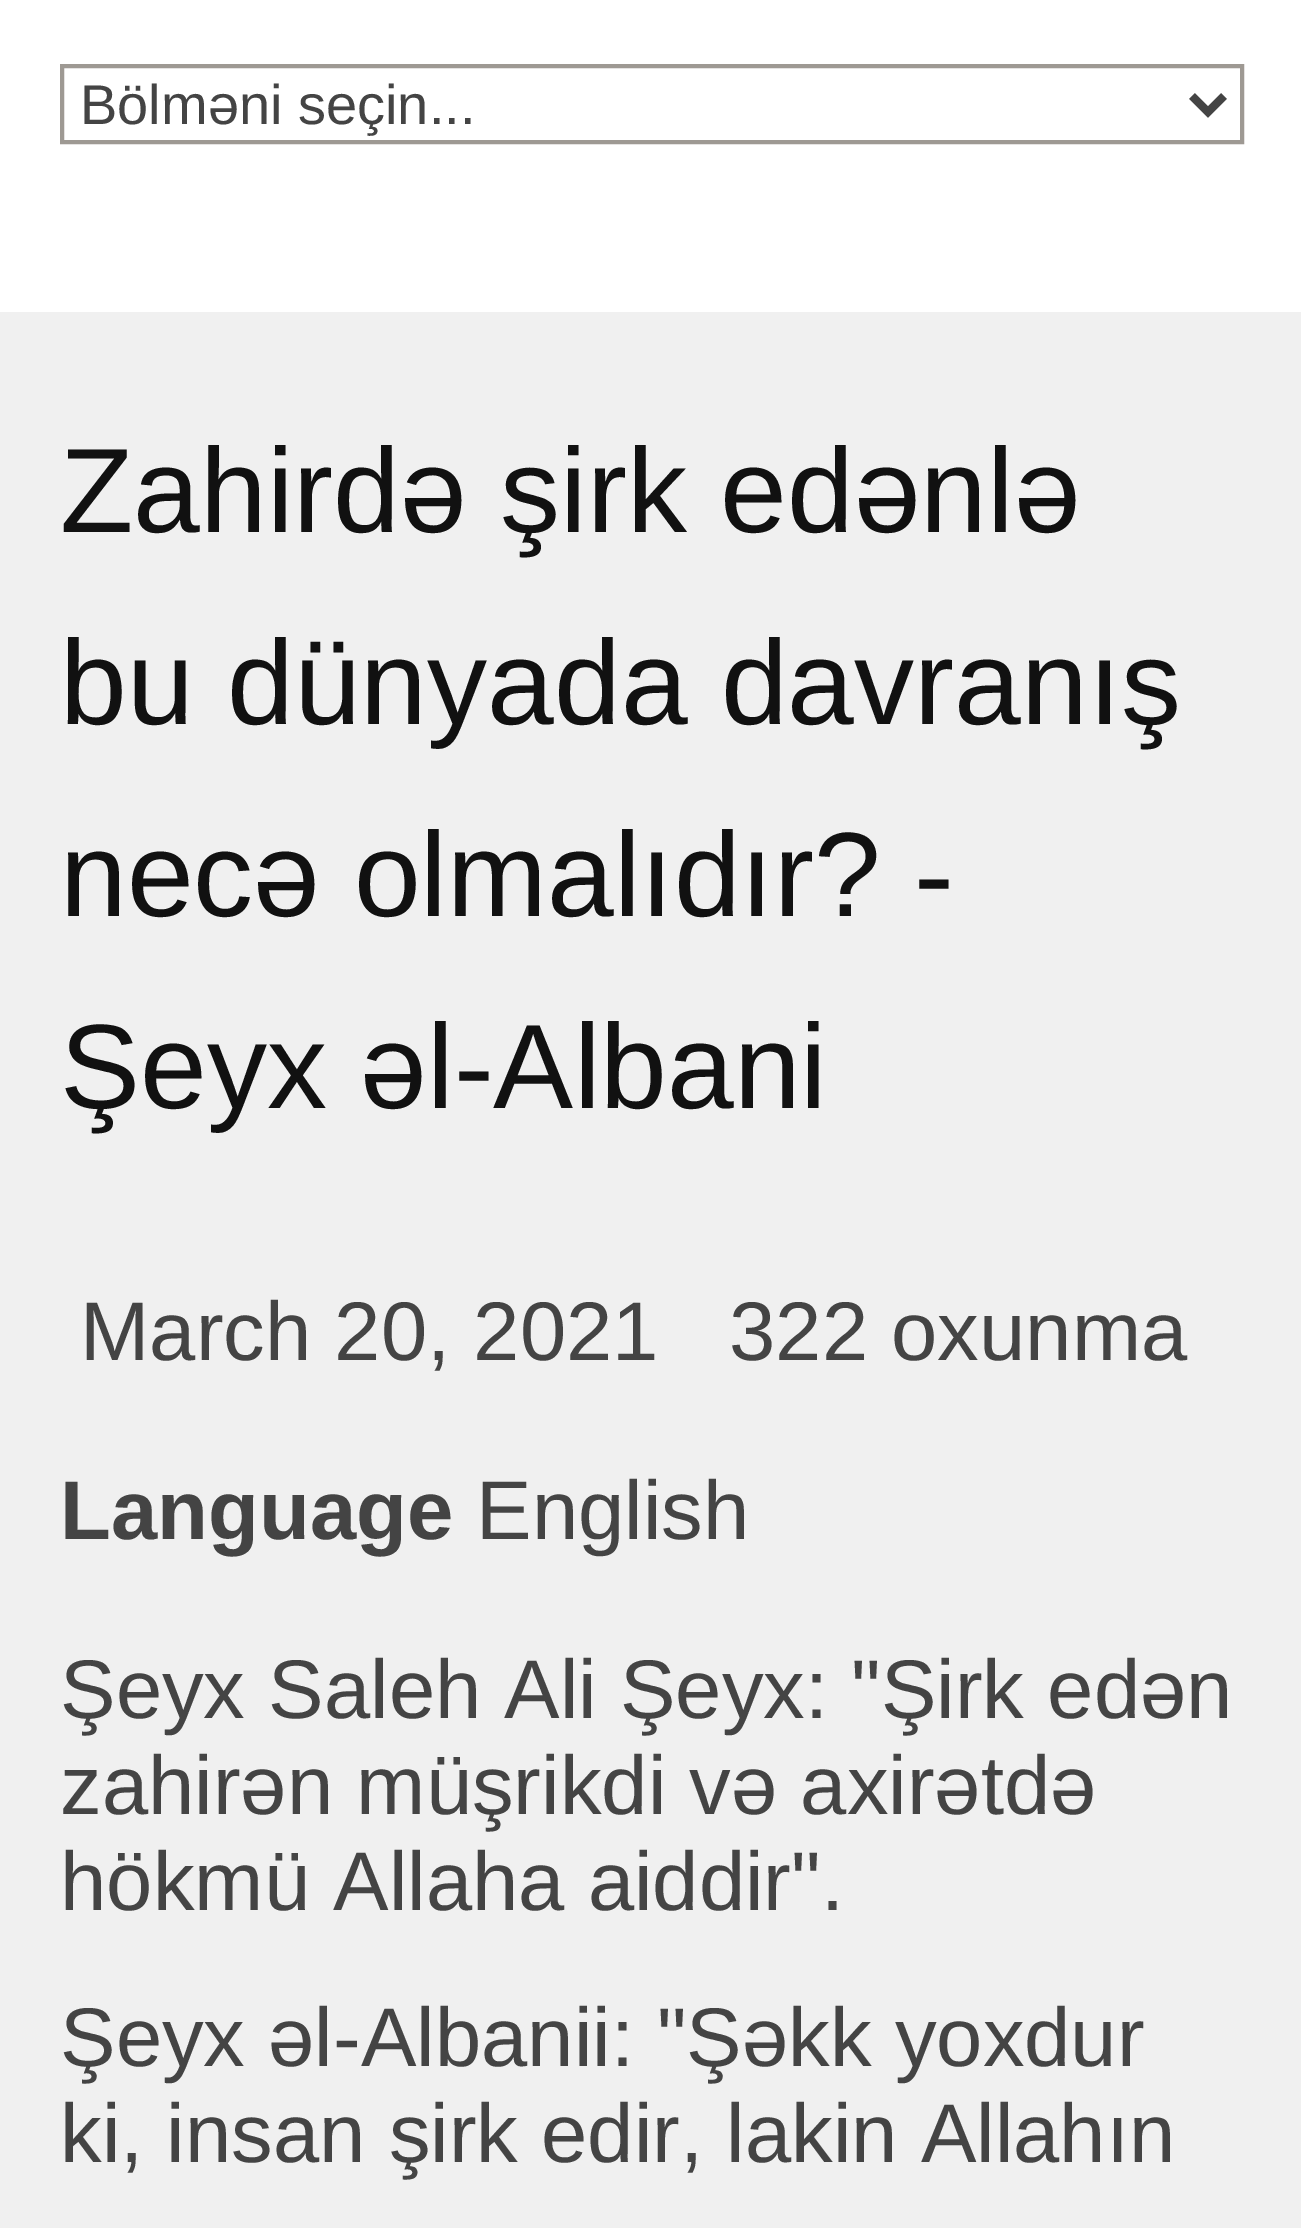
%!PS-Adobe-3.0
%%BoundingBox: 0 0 1301 2228
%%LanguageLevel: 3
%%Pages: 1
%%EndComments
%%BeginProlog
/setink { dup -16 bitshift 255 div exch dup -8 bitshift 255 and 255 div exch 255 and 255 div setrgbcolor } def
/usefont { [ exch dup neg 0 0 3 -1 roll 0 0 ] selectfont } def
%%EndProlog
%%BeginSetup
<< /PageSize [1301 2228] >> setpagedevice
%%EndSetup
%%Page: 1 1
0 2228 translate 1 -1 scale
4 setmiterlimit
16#FFFFFF setink
0 0 1301 2228 rectfill
16#9E9993 setink
4 setlinewidth
62 66 1180 76 rectstroke
16#444444 setink
8 setlinewidth
1192 96 moveto 1208 112 lineto 1224 96 lineto stroke
/LiberationSans-Regular 56 usefont
80 124 moveto (Bölməni seçin...) show
16#F0F0F0 setink
0 312 1301 1916 rectfill
/LiberationSans-Regular 120 usefont
16#111111 setink
[
    [(Zahirdə şirk edənlə) 60 532]
    [(bu dünyada davranış) 60 724]
    [(necə olmalıdır? -) 60 916]
    [(Şeyx əl-Albani) 60 1108]
] { aload pop moveto show } forall
/LiberationSans-Regular 83.25 usefont
16#444444 setink
80 1360 moveto (March 20, 2021) show
729 1360 moveto (322 oxunma) show
/LiberationSans-Bold 83.25 usefont
60 1539 moveto (Language) show
/LiberationSans-Regular 83.25 usefont
[
    [(English) 476 1539]
    [(Şeyx Saleh Ali Şeyx: "Şirk edən) 60 1718]
    [(zahirən müşrikdi və axirətdə) 60 1814]
    [(hökmü Allaha aiddir".) 60 1910]
    [(Şeyx əl-Albanii: "Şəkk yoxdur) 60 2066]
    [(ki, insan şirk edir, lakin Allahın) 60 2162]
] { aload pop moveto show } forall
showpage
%%EOF
